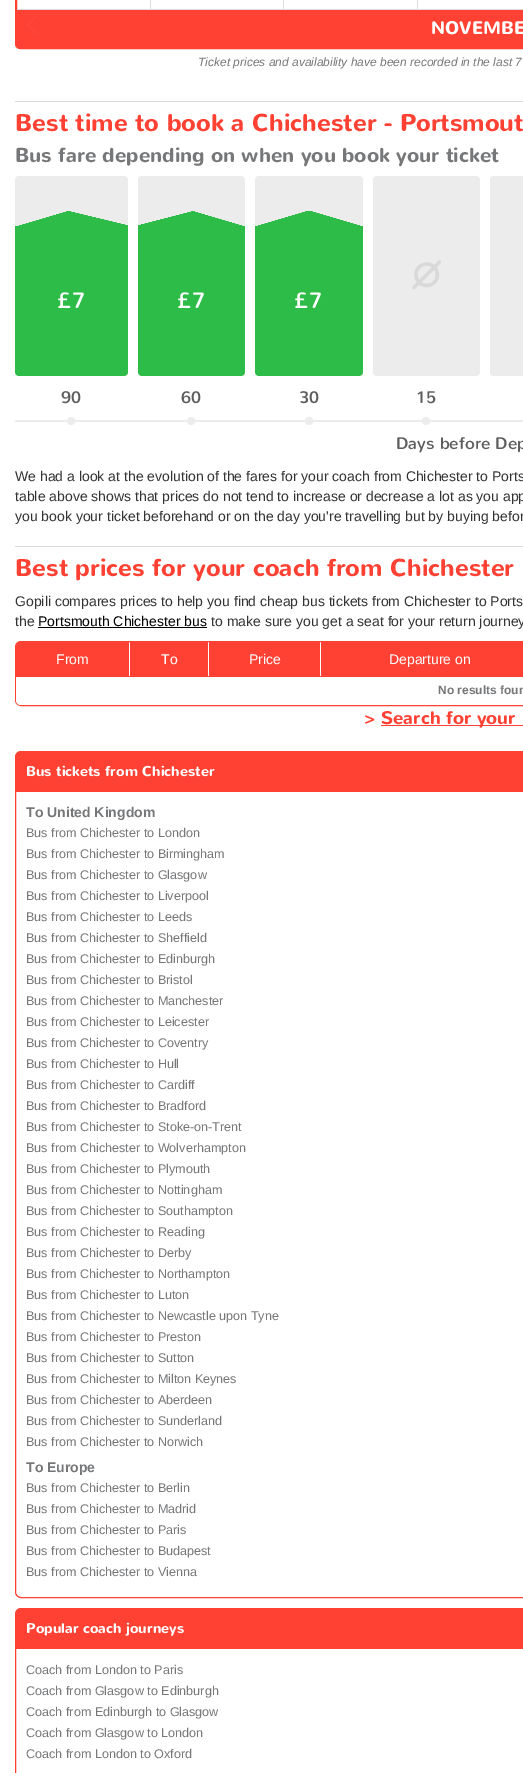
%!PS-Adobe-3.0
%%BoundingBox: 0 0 523 1773
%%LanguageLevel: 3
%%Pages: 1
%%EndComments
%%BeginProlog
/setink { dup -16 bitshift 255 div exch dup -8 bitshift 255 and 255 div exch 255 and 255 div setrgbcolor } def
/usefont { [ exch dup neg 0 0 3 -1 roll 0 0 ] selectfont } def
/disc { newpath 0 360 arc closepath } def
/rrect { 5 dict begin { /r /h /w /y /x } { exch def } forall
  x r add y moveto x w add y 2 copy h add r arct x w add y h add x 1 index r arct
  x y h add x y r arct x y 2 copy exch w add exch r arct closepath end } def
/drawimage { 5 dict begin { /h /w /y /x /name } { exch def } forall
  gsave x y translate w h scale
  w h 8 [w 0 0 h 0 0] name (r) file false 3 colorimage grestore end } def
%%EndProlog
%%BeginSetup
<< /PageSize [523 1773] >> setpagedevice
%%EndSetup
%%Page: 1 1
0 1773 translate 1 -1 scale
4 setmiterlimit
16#FFFFFF setink
0 0 523 1773 rectfill
16#FF4133 setink
2 setlinewidth
16 -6 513 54 4 rrect stroke
[
    [150 0 1 10 16#DDDDDD]
    [17 9 134 1 16#DDDDDD]
    [283 0 1 10 16#DDDDDD]
    [151 9 133 1 16#DDDDDD]
    [417 0 1 10 16#DDDDDD]
    [284 9 239 1 16#DDDDDD]
    [17 10 506 37 16#FF4133]
] { aload pop setink rectfill } forall
(img1.raw) 27 16 9 18 drawimage
/Nunito-Bold 18 usefont
16#FFFFFF setink
431 34 moveto (NOVEMBE) show
/LiberationSans-Italic 12 usefont
16#767779 setink
198 66 moveto (Ticket prices and availability have been recorded in the last 7) show
16#D9D9D9 setink
15 101 508 1 rectfill
/Nunito-Bold 24 usefont
16#FF4133 setink
15 131 moveto (Best time to book a Chichester - Portsmout) show
/Nunito-Bold 20 usefont
16#767779 setink
15 162 moveto (Bus fare depending on when you book your ticket) show
16#ECECEC setink
15 176 113 200 4 rrect fill
gsave 18 211 moveto 71 211 lineto 71 226 lineto 18 226 lineto closepath clip newpath
<< /ShadingType 2 /ColorSpace /DeviceRGB /Coords [47 232 39 205] /Extend [true true] /Function << /FunctionType 3 /Domain [0 1] /Functions [<< /FunctionType 2 /Domain [0 1] /C0 [0.18 0.737 0.282] /C1 [0.18 0.737 0.282] /N 1 >> << /FunctionType 2 /Domain [0 1] /C0 [0.18 0.737 0.282] /C1 [0.925 0.925 0.925] /N 1 >> << /FunctionType 2 /Domain [0 1] /C0 [0.925 0.925 0.925] /C1 [0.925 0.925 0.925] /N 1 >>] /Bounds [0.5 0.51] /Encode [0 1 0 1 0 1] >> >> shfill grestore
gsave 71 211 moveto 128 211 lineto 128 226 lineto 71 226 lineto closepath clip newpath
<< /ShadingType 2 /ColorSpace /DeviceRGB /Coords [96 233 103 204] /Extend [true true] /Function << /FunctionType 3 /Domain [0 1] /Functions [<< /FunctionType 2 /Domain [0 1] /C0 [0.18 0.737 0.282] /C1 [0.18 0.737 0.282] /N 1 >> << /FunctionType 2 /Domain [0 1] /C0 [0.18 0.737 0.282] /C1 [0.925 0.925 0.925] /N 1 >> << /FunctionType 2 /Domain [0 1] /C0 [0.925 0.925 0.925] /C1 [0.925 0.925 0.925] /N 1 >>] /Bounds [0.5 0.51] /Encode [0 1 0 1 0 1] >> >> shfill grestore
16#2EBC48 setink
15 226 moveto 128 226 lineto 128 372 lineto 128 374 126 376 124 376 curveto 19 376 lineto 17 376 15 374 15 372 curveto closepath fill
/Nunito-Regular 22 usefont
16#FFFFFF setink
57 308 moveto (£7) show
/Nunito-Regular 16.75 usefont
16#5D5D5D setink
61 403 moveto (90) show
16#ECECEC setink
15 420 128 2 1 rrect fill
71 421 4 disc fill
138 176 107 200 4 rrect fill
gsave 138 211 moveto 191 211 lineto 191 226 lineto 138 226 lineto closepath clip newpath
<< /ShadingType 2 /ColorSpace /DeviceRGB /Coords [168 232 161 205] /Extend [true true] /Function << /FunctionType 3 /Domain [0 1] /Functions [<< /FunctionType 2 /Domain [0 1] /C0 [0.18 0.737 0.282] /C1 [0.18 0.737 0.282] /N 1 >> << /FunctionType 2 /Domain [0 1] /C0 [0.18 0.737 0.282] /C1 [0.925 0.925 0.925] /N 1 >> << /FunctionType 2 /Domain [0 1] /C0 [0.925 0.925 0.925] /C1 [0.925 0.925 0.925] /N 1 >>] /Bounds [0.5 0.51] /Encode [0 1 0 1 0 1] >> >> shfill grestore
gsave 191 211 moveto 243 211 lineto 243 226 lineto 191 226 lineto closepath clip newpath
<< /ShadingType 2 /ColorSpace /DeviceRGB /Coords [214 232 222 205] /Extend [true true] /Function << /FunctionType 3 /Domain [0 1] /Functions [<< /FunctionType 2 /Domain [0 1] /C0 [0.18 0.737 0.282] /C1 [0.18 0.737 0.282] /N 1 >> << /FunctionType 2 /Domain [0 1] /C0 [0.18 0.737 0.282] /C1 [0.925 0.925 0.925] /N 1 >> << /FunctionType 2 /Domain [0 1] /C0 [0.925 0.925 0.925] /C1 [0.925 0.925 0.925] /N 1 >>] /Bounds [0.5 0.51] /Encode [0 1 0 1 0 1] >> >> shfill grestore
16#2EBC48 setink
138 226 moveto 245 226 lineto 245 372 lineto 245 374 243 376 241 376 curveto 142 376 lineto 140 376 138 374 138 372 curveto closepath fill
/Nunito-Regular 22 usefont
16#FFFFFF setink
177 308 moveto (£7) show
/Nunito-Regular 16.75 usefont
16#5D5D5D setink
181 403 moveto (60) show
16#ECECEC setink
123 420 137 2 1 rrect fill
191 421 4 disc fill
255 176 108 200 4 rrect fill
gsave 257 211 moveto 309 211 lineto 309 226 lineto 257 226 lineto closepath clip newpath
<< /ShadingType 2 /ColorSpace /DeviceRGB /Coords [286 232 278 205] /Extend [true true] /Function << /FunctionType 3 /Domain [0 1] /Functions [<< /FunctionType 2 /Domain [0 1] /C0 [0.18 0.737 0.282] /C1 [0.18 0.737 0.282] /N 1 >> << /FunctionType 2 /Domain [0 1] /C0 [0.18 0.737 0.282] /C1 [0.925 0.925 0.925] /N 1 >> << /FunctionType 2 /Domain [0 1] /C0 [0.925 0.925 0.925] /C1 [0.925 0.925 0.925] /N 1 >>] /Bounds [0.5 0.51] /Encode [0 1 0 1 0 1] >> >> shfill grestore
gsave 309 211 moveto 361 211 lineto 361 226 lineto 309 226 lineto closepath clip newpath
<< /ShadingType 2 /ColorSpace /DeviceRGB /Coords [332 232 340 205] /Extend [true true] /Function << /FunctionType 3 /Domain [0 1] /Functions [<< /FunctionType 2 /Domain [0 1] /C0 [0.18 0.737 0.282] /C1 [0.18 0.737 0.282] /N 1 >> << /FunctionType 2 /Domain [0 1] /C0 [0.18 0.737 0.282] /C1 [0.925 0.925 0.925] /N 1 >> << /FunctionType 2 /Domain [0 1] /C0 [0.925 0.925 0.925] /C1 [0.925 0.925 0.925] /N 1 >>] /Bounds [0.5 0.51] /Encode [0 1 0 1 0 1] >> >> shfill grestore
16#2EBC48 setink
255 226 moveto 363 226 lineto 363 372 lineto 363 374 361 376 359 376 curveto 259 376 lineto 257 376 255 374 255 372 curveto closepath fill
/Nunito-Regular 22 usefont
16#FFFFFF setink
294 308 moveto (£7) show
/Nunito-Regular 16.75 usefont
16#5D5D5D setink
299 403 moveto (30) show
16#ECECEC setink
240 420 138 2 1 rrect fill
309 421 4 disc fill
373 176 107 200 4 rrect fill
/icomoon-Regular 42 usefont
16#D9D9D9 setink
405 293 moveto (¸) show
/Nunito-Regular 16.75 usefont
16#5D5D5D setink
416 403 moveto (15) show
16#ECECEC setink
358 420 137 2 1 rrect fill
426 421 4 disc fill
490 176 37 200 4 rrect fill
475 420 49 2 1 rrect fill
16#5D5D5D setink
396 449 moveto (Days before Dep) show
/LiberationSans-Regular 14 usefont
16#333333 setink
[
    [(We had a look at the evolution of the fares for your coach from Chichester to Ports) 15 481]
    [(table above shows that prices do not tend to increase or decrease a lot as you app) 15 501]
    [(you book your ticket beforehand or on the day you're travelling but by buying befor) 15 521]
] { aload pop moveto show } forall
16#D9D9D9 setink
15 546 508 1 rectfill
/Nunito-Bold 24 usefont
16#FF4133 setink
15 576 moveto (Best prices for your coach from Chichester) show
/LiberationSans-Regular 14 usefont
16#333333 setink
15 606 moveto (Gopili compares prices to help you find cheap bus tickets from Chichester to Ports) show
15 626 moveto (the) show
16#000000 setink
38 626 moveto (Portsmouth Chichester bus) show
38 627 169 1 rectfill
16#333333 setink
211 626 moveto (to make sure you get a seat for your return journey) show
16#FF4133 setink
1 setlinewidth
15.5 641.5 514 64 5.5 rrect stroke
21 642 moveto 129 642 lineto 129 677 lineto 16 677 lineto 16 647 lineto 16 644 18 642 21 642 curveto closepath fill
[
    [208 676 113 1 16#FF4133]
    [208 676 1 1 16#FFFFFF]
    [129 676 80 1 16#FF4133]
    [129 676 1 1 16#FFFFFF]
    [129 676 1 1 16#FF4133]
] { aload pop setink rectfill } forall
16#FFFFFF setink
56 664 moveto (From) show
16#FF4133 setink
130 642 78 34 rectfill
16#FFFFFF setink
161 664 moveto (To) show
16#FF4133 setink
209 642 111 34 rectfill
16#FFFFFF setink
249 664 moveto (Price) show
16#FF4133 setink
321 642 202 35 rectfill
16#FFFFFF setink
389 664 moveto (Departure on) show
16 677 moveto 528 677 lineto 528 700 lineto 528 703 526 705 523 705 curveto 21 705 lineto 18 705 16 703 16 700 curveto closepath fill
/LiberationSans-Bold 12 usefont
16#767779 setink
438 694 moveto (No results foun) show
/Nunito-Bold 18 usefont
16#FF4133 setink
364 724 moveto (>) show
381 725 142 1 rectfill
381 724 moveto (Search for your) show
15.5 751.5 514 846 5.5 rrect stroke
21 752 moveto 523 752 lineto 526 752 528 754 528 757 curveto 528 792 lineto 16 792 lineto 16 757 lineto 16 754 18 752 21 752 curveto closepath fill
/Nunito-Bold 14 usefont
16#FFFFFF setink
26 776 moveto (Bus tickets from Chichester) show
/LiberationSans-Bold 14 usefont
16#767779 setink
26 817 moveto (To United Kingdom) show
/LiberationSans-Regular 12.6 usefont
[
    [(Bus from Chichester to London) 26 837]
    [(Bus from Chichester to Birmingham) 26 858]
    [(Bus from Chichester to Glasgow) 26 879]
    [(Bus from Chichester to Liverpool) 26 900]
    [(Bus from Chichester to Leeds) 26 921]
    [(Bus from Chichester to Sheffield) 26 942]
    [(Bus from Chichester to Edinburgh) 26 963]
    [(Bus from Chichester to Bristol) 26 984]
    [(Bus from Chichester to Manchester) 26 1005]
    [(Bus from Chichester to Leicester) 26 1026]
    [(Bus from Chichester to Coventry) 26 1047]
    [(Bus from Chichester to Hull) 26 1068]
    [(Bus from Chichester to Cardiff) 26 1089]
    [(Bus from Chichester to Bradford) 26 1110]
    [(Bus from Chichester to Stoke-on-Trent) 26 1131]
    [(Bus from Chichester to Wolverhampton) 26 1152]
    [(Bus from Chichester to Plymouth) 26 1173]
    [(Bus from Chichester to Nottingham) 26 1194]
    [(Bus from Chichester to Southampton) 26 1215]
    [(Bus from Chichester to Reading) 26 1236]
    [(Bus from Chichester to Derby) 26 1257]
    [(Bus from Chichester to Northampton) 26 1278]
    [(Bus from Chichester to Luton) 26 1299]
    [(Bus from Chichester to Newcastle upon Tyne) 26 1320]
    [(Bus from Chichester to Preston) 26 1341]
    [(Bus from Chichester to Sutton) 26 1362]
    [(Bus from Chichester to Milton Keynes) 26 1383]
    [(Bus from Chichester to Aberdeen) 26 1404]
    [(Bus from Chichester to Sunderland) 26 1425]
    [(Bus from Chichester to Norwich) 26 1446]
] { aload pop moveto show } forall
/LiberationSans-Bold 14 usefont
26 1472 moveto (To Europe) show
/LiberationSans-Regular 12.6 usefont
[
    [(Bus from Chichester to Berlin) 26 1492]
    [(Bus from Chichester to Madrid) 26 1513]
    [(Bus from Chichester to Paris) 26 1534]
    [(Bus from Chichester to Budapest) 26 1555]
    [(Bus from Chichester to Vienna) 26 1576]
] { aload pop moveto show } forall
16#FF4133 setink
15.5 1608.5 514 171 5.5 rrect stroke
21 1609 moveto 523 1609 lineto 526 1609 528 1611 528 1614 curveto 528 1649 lineto 16 1649 lineto 16 1614 lineto 16 1611 18 1609 21 1609 curveto closepath fill
/Nunito-Bold 14 usefont
16#FFFFFF setink
26 1633 moveto (Popular coach journeys) show
/LiberationSans-Regular 12.6 usefont
16#767779 setink
[
    [(Coach from London to Paris) 26 1674]
    [(Coach from Glasgow to Edinburgh) 26 1695]
    [(Coach from Edinburgh to Glasgow) 26 1716]
    [(Coach from Glasgow to London) 26 1737]
    [(Coach from London to Oxford) 26 1758]
] { aload pop moveto show } forall
showpage
%%EOF
